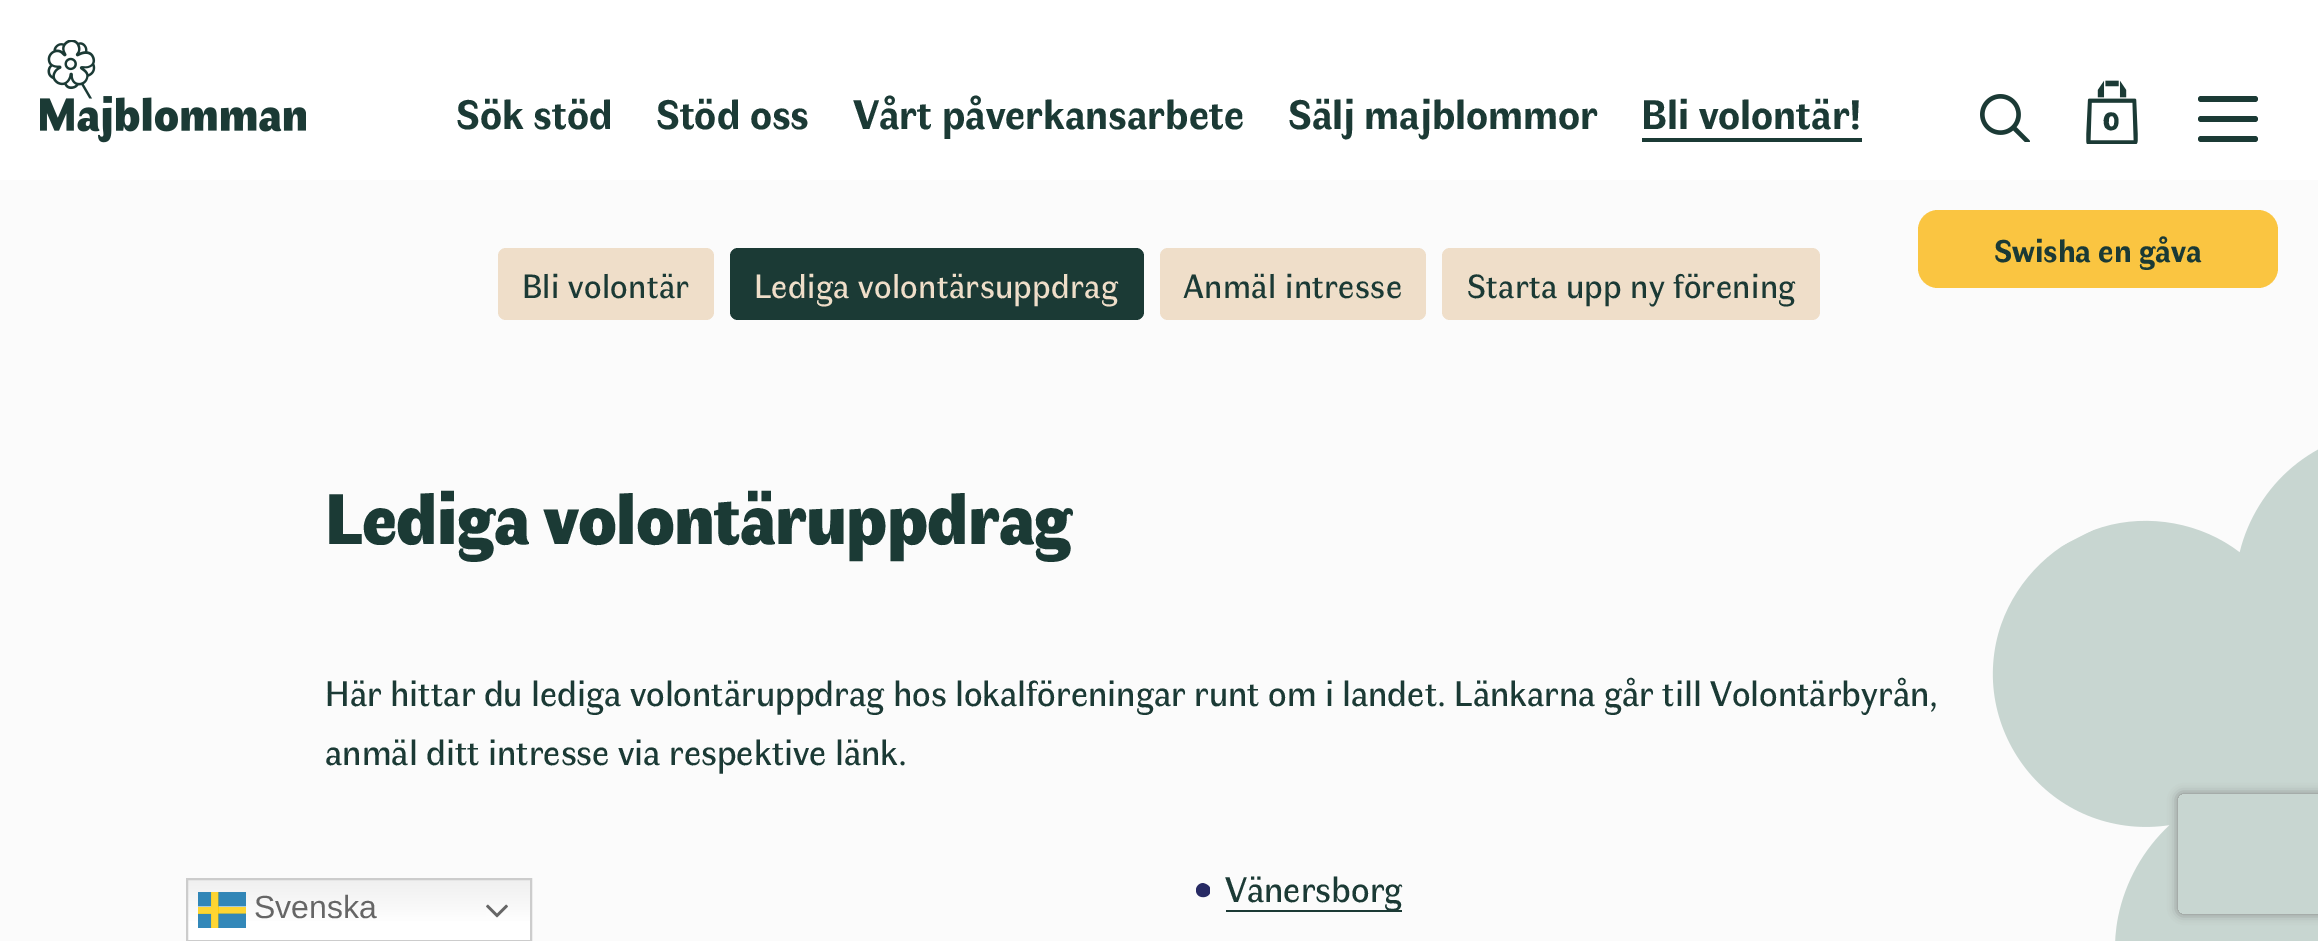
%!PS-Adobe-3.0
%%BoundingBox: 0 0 2318 941
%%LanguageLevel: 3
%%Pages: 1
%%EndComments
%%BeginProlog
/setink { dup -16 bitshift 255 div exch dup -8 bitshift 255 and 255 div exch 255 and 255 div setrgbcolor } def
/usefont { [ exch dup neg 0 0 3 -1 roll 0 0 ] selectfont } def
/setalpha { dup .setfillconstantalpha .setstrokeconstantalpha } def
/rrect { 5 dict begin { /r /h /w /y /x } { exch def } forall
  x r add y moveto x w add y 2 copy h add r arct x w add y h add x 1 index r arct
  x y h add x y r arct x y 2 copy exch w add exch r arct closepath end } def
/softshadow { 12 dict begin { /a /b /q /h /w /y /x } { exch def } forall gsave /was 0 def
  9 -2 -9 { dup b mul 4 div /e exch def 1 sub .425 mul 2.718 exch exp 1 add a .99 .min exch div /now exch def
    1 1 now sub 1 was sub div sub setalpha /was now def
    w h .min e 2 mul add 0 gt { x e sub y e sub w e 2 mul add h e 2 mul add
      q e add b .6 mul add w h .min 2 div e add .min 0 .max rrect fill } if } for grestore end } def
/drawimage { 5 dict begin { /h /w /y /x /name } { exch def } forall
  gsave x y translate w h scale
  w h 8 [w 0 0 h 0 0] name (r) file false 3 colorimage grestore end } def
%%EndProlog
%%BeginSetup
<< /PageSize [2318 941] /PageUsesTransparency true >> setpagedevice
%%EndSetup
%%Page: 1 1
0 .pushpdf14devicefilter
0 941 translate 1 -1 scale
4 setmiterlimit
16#FBFBFB setink
0 0 2318 941 rectfill
16#FFFFFF setink
0 0 2318 180 rectfill
(img1.raw) 40 40 266 103 drawimage
/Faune-Bold 41.75 usefont
16#1B3A35 setink
[
    [(Sök stöd) 456 129]
    [(Stöd oss) 656 129]
    [(Vårt påverkansarbete) 853 129]
    [(Sälj majblommor) 1288 129]
    [(Bli volontär!) 1641 129]
] { aload pop moveto show } forall
1642 138 220 4 rectfill
(img2.raw) 1980 94 50 48 drawimage
(img3.raw) 2086 80 52 64 drawimage
/Faune-Black 26 usefont
2103 130 moveto 2 0 (0) ashow
2198 96 60 6 3 rrect fill
2198 116 60 6 3 rrect fill
2198 136 60 6 3 rrect fill
16#FAC541 setink
1918 210 360 78 20 rrect fill
/Faune-Bold 32 usefont
16#1B3A35 setink
1994 262 moveto (Swisha en gåva) show
gsave 188 880 moveto 530 880 lineto 530 940 lineto 188 940 lineto closepath clip newpath
<< /ShadingType 2 /ColorSpace /DeviceRGB /Coords [359 878 359 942] /Extend [true true] /Function << /FunctionType 3 /Domain [0 1] /Functions [<< /FunctionType 2 /Domain [0 1] /C0 [0.937 0.937 0.937] /C1 [1 1 1] /N 1 >> << /FunctionType 2 /Domain [0 1] /C0 [1 1 1] /C1 [1 1 1] /N 1 >>] /Bounds [0.7] /Encode [0 1 0 1] >> >> shfill grestore
16#CCCCCC setink
2 setlinewidth
187 879 344 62 rectstroke
(img4.raw) 198 892 48 36 drawimage
/LiberationSans-Regular 32 usefont
16#666666 setink
254 918 moveto (Svenska) show
(img5.raw) 486 904 22 14 drawimage
16#EFDEC9 setink
498 248 216 72 8 rrect fill
/Faune-Regular 34 usefont
16#1B3A35 setink
522 298 moveto 0.3 0 (Bli volontär) ashow
730 248 414 72 8 rrect fill
16#EFDEC9 setink
754 298 moveto 0.3 0 (Lediga volontärsuppdrag) ashow
1160 248 266 72 8 rrect fill
16#1B3A35 setink
1183 298 moveto 0.3 0 (Anmäl intresse) ashow
16#EFDEC9 setink
1442 248 378 72 8 rrect fill
16#1B3A35 setink
1467 298 moveto 0.3 0 (Starta upp ny förening) ashow
/Faune-Black 72 usefont
325 544 moveto -0.75 0 (Lediga volontäruppdrag) ashow
/Faune-Regular 36 usefont
325 706 moveto (Här hittar du lediga volontäruppdrag hos lokalföreningar runt om i landet. Länkarna går till Volontärbyrån,) show
325 765 moveto (anmäl ditt intresse via respektive länk.) show
(img6.raw) 1196 883 14 15 drawimage
1226 910 176 2 rectfill
1225 902 moveto (Vänersborg) show
(img7.raw) 1992 449 326 492 drawimage
gsave
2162 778 moveto 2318 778 lineto 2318 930 lineto 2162 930 lineto closepath 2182 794 moveto 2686 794 lineto 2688 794 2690 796 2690 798 curveto 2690 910 lineto 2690 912 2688 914 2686 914 curveto 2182 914 lineto 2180 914 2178 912 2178 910 curveto 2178 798 lineto 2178 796 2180 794 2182 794 curveto closepath eoclip newpath
16#808080 setink
2178 794 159 120 4 5 1 softshadow
grestore
.poppdf14devicefilter showpage
%%EOF
